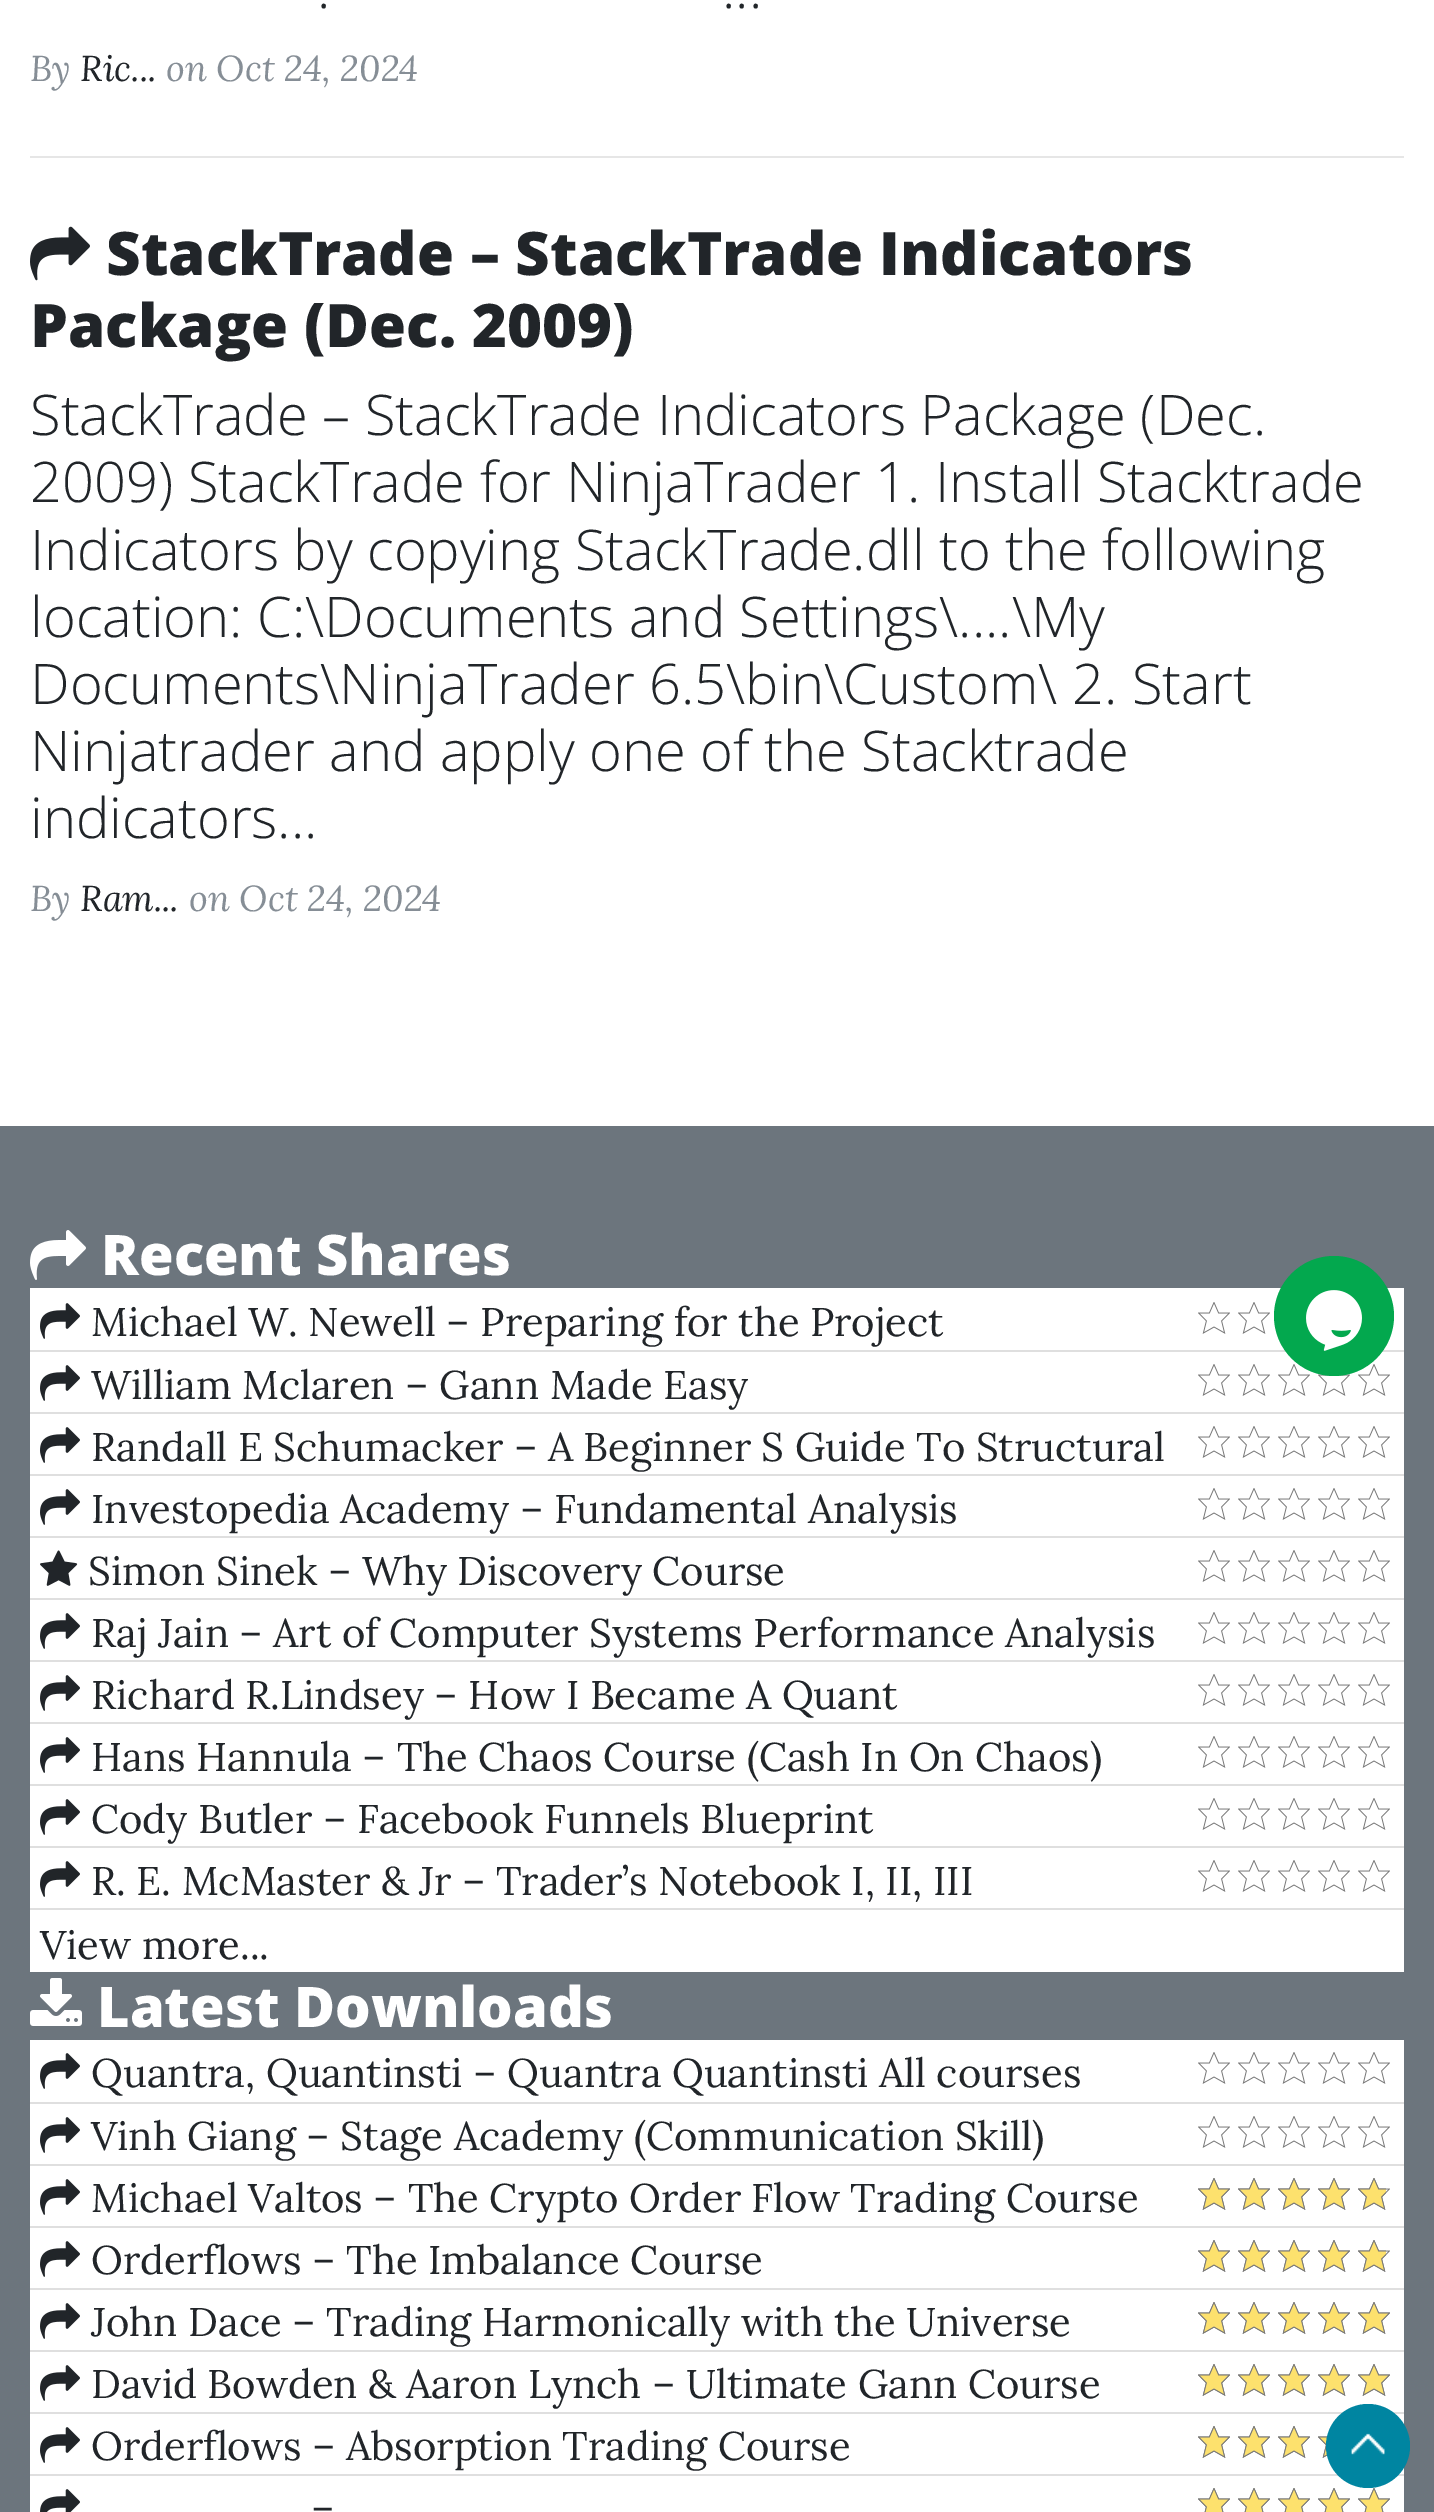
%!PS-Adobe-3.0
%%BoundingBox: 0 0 1434 2512
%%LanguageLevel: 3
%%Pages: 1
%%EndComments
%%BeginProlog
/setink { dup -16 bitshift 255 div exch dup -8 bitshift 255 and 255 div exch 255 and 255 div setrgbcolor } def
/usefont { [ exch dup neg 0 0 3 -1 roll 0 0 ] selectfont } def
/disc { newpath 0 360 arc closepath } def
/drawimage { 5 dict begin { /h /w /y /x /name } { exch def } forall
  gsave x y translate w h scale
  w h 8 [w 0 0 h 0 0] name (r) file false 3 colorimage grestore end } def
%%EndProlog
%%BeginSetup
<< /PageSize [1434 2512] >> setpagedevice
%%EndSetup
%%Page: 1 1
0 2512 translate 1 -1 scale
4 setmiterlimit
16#FFFFFF setink
0 0 1434 2512 rectfill
/OpenSans-Light 56 usefont
16#212529 setink
317 8 moveto (.) show
722 8 moveto (...) show
/Lora-Italic 36 usefont
16#868E96 setink
30 81 moveto (By) show
16#212529 setink
80 81 moveto (Ric...) show
16#868E96 setink
166 81 moveto (on Oct 24, 2024) show
16#E6E6E6 setink
30 156 1374 2 rectfill
(img1.raw) 30 226 60 55 drawimage
/OpenSans-ExtraBold 60 usefont
16#212529 setink
106 275 moveto (StackTrade – StackTrade Indicators) show
30 347 moveto (Package \(Dec. 2009\)) show
/OpenSans-Light 56 usefont
[
    [(StackTrade – StackTrade Indicators Package \(Dec.) 30 435]
    [(2009\) StackTrade for NinjaTrader 1. Install Stacktrade) 30 502]
    [(Indicators by copying StackTrade.dll to the following) 30 570]
    [(location: C:\\Documents and Settings\\....\\My) 30 637]
    [(Documents\\NinjaTrader 6.5\\bin\\Custom\\ 2. Start) 30 704]
    [(Ninjatrader and apply one of the Stacktrade) 30 771]
    [(indicators...) 30 838]
] { aload pop moveto show } forall
/Lora-Italic 36 usefont
16#868E96 setink
30 911 moveto (By) show
16#212529 setink
80 911 moveto (Ram...) show
16#868E96 setink
189 911 moveto (on Oct 24, 2024) show
16#6C757D setink
0 1126 1434 1386 rectfill
(img2.raw) 30 1230 56 50 drawimage
/OpenSans-ExtraBold 56 usefont
16#FFFFFF setink
101 1275 moveto (Recent Shares) show
30 1288 1374 62 rectfill
(img3.raw) 40 1303 40 36 drawimage
/Lora-Regular 40 usefont
16#212529 setink
91 1336 moveto (Michael W. Newell – Preparing for the Project) show
(img4.raw) 1198 1302 32 32 drawimage
(img4.raw) 1238 1302 32 32 drawimage
16#FFFFFF setink
30 1352 1374 60 rectfill
16#DFDFDF setink
30 1350 1374 2 rectfill
(img3.raw) 40 1365 40 36 drawimage
16#212529 setink
91 1399 moveto (William Mclaren – Gann Made Easy) show
(img4.raw) 1198 1364 32 32 drawimage
(img4.raw) 1238 1364 32 32 drawimage
(img4.raw) 1278 1364 32 32 drawimage
(img5.raw) 1318 1374 32 22 drawimage
(img4.raw) 1358 1364 32 32 drawimage
16#FFFFFF setink
30 1414 1374 60 rectfill
16#DFDFDF setink
30 1412 1374 2 rectfill
(img3.raw) 40 1427 40 36 drawimage
16#212529 setink
91 1461 moveto (Randall E Schumacker – A Beginner S Guide To Structural) show
(img4.raw) 1198 1426 32 32 drawimage
(img4.raw) 1238 1426 32 32 drawimage
(img4.raw) 1278 1426 32 32 drawimage
(img4.raw) 1318 1426 32 32 drawimage
(img4.raw) 1358 1426 32 32 drawimage
16#FFFFFF setink
30 1476 1374 60 rectfill
16#DFDFDF setink
30 1474 1374 2 rectfill
(img3.raw) 40 1489 40 36 drawimage
16#212529 setink
91 1523 moveto (Investopedia Academy – Fundamental Analysis) show
(img4.raw) 1198 1488 32 32 drawimage
(img4.raw) 1238 1488 32 32 drawimage
(img4.raw) 1278 1488 32 32 drawimage
(img4.raw) 1318 1488 32 32 drawimage
(img4.raw) 1358 1488 32 32 drawimage
16#FFFFFF setink
30 1538 1374 60 rectfill
16#DFDFDF setink
30 1536 1374 2 rectfill
(img6.raw) 40 1550 38 36 drawimage
16#212529 setink
88 1585 moveto (Simon Sinek – Why Discovery Course) show
(img4.raw) 1198 1550 32 32 drawimage
(img4.raw) 1238 1550 32 32 drawimage
(img4.raw) 1278 1550 32 32 drawimage
(img4.raw) 1318 1550 32 32 drawimage
(img4.raw) 1358 1550 32 32 drawimage
16#FFFFFF setink
30 1600 1374 60 rectfill
16#DFDFDF setink
30 1598 1374 2 rectfill
(img3.raw) 40 1613 40 36 drawimage
16#212529 setink
91 1647 moveto (Raj Jain – Art of Computer Systems Performance Analysis) show
(img4.raw) 1198 1612 32 32 drawimage
(img4.raw) 1238 1612 32 32 drawimage
(img4.raw) 1278 1612 32 32 drawimage
(img4.raw) 1318 1612 32 32 drawimage
(img4.raw) 1358 1612 32 32 drawimage
16#FFFFFF setink
30 1662 1374 60 rectfill
16#DFDFDF setink
30 1660 1374 2 rectfill
(img3.raw) 40 1675 40 36 drawimage
16#212529 setink
91 1709 moveto (Richard R.Lindsey – How I Became A Quant) show
(img4.raw) 1198 1674 32 32 drawimage
(img4.raw) 1238 1674 32 32 drawimage
(img4.raw) 1278 1674 32 32 drawimage
(img4.raw) 1318 1674 32 32 drawimage
(img4.raw) 1358 1674 32 32 drawimage
16#FFFFFF setink
30 1724 1374 60 rectfill
16#DFDFDF setink
30 1722 1374 2 rectfill
(img3.raw) 40 1737 40 36 drawimage
16#212529 setink
91 1771 moveto (Hans Hannula – The Chaos Course \(Cash In On Chaos\)) show
(img4.raw) 1198 1736 32 32 drawimage
(img4.raw) 1238 1736 32 32 drawimage
(img4.raw) 1278 1736 32 32 drawimage
(img4.raw) 1318 1736 32 32 drawimage
(img4.raw) 1358 1736 32 32 drawimage
16#FFFFFF setink
30 1786 1374 60 rectfill
16#DFDFDF setink
30 1784 1374 2 rectfill
(img3.raw) 40 1799 40 36 drawimage
16#212529 setink
91 1833 moveto (Cody Butler – Facebook Funnels Blueprint) show
(img4.raw) 1198 1798 32 32 drawimage
(img4.raw) 1238 1798 32 32 drawimage
(img4.raw) 1278 1798 32 32 drawimage
(img4.raw) 1318 1798 32 32 drawimage
(img4.raw) 1358 1798 32 32 drawimage
16#FFFFFF setink
30 1848 1374 60 rectfill
16#DFDFDF setink
30 1846 1374 2 rectfill
(img3.raw) 40 1861 40 36 drawimage
16#212529 setink
91 1895 moveto (R. E. McMaster & Jr – Trader’s Notebook I, II, III) show
(img4.raw) 1198 1860 32 32 drawimage
(img4.raw) 1238 1860 32 32 drawimage
(img4.raw) 1278 1860 32 32 drawimage
(img4.raw) 1318 1860 32 32 drawimage
(img4.raw) 1358 1860 32 32 drawimage
16#FFFFFF setink
30 1910 1374 62 rectfill
16#DFDFDF setink
30 1908 1374 2 rectfill
16#212529 setink
40 1959 moveto (View more...) show
(img7.raw) 30 1978 52 48 drawimage
/OpenSans-ExtraBold 56 usefont
16#FFFFFF setink
97 2027 moveto (Latest Downloads) show
30 2040 1374 62 rectfill
(img3.raw) 40 2053 40 36 drawimage
/Lora-Regular 40 usefont
16#212529 setink
91 2087 moveto (Quantra, Quantinsti – Quantra Quantinsti All courses) show
(img4.raw) 1198 2052 32 32 drawimage
(img4.raw) 1238 2052 32 32 drawimage
(img4.raw) 1278 2052 32 32 drawimage
(img4.raw) 1318 2052 32 32 drawimage
(img4.raw) 1358 2052 32 32 drawimage
16#FFFFFF setink
30 2104 1374 60 rectfill
16#DFDFDF setink
30 2102 1374 2 rectfill
(img3.raw) 40 2117 40 36 drawimage
16#212529 setink
91 2150 moveto (Vinh Giang – Stage Academy \(Communication Skill\)) show
(img4.raw) 1198 2116 32 32 drawimage
(img4.raw) 1238 2116 32 32 drawimage
(img4.raw) 1278 2116 32 32 drawimage
(img4.raw) 1318 2116 32 32 drawimage
(img4.raw) 1358 2116 32 32 drawimage
16#FFFFFF setink
30 2166 1374 60 rectfill
16#DFDFDF setink
30 2164 1374 2 rectfill
(img3.raw) 40 2179 40 36 drawimage
16#212529 setink
91 2212 moveto (Michael Valtos – The Crypto Order Flow Trading Course) show
(img4.raw) 1198 2178 32 32 drawimage
(img4.raw) 1238 2178 32 32 drawimage
(img4.raw) 1278 2178 32 32 drawimage
(img4.raw) 1318 2178 32 32 drawimage
(img4.raw) 1358 2178 32 32 drawimage
(img8.raw) 1198 2178 32 32 drawimage
(img8.raw) 1238 2178 32 32 drawimage
(img8.raw) 1278 2178 32 32 drawimage
(img8.raw) 1318 2178 32 32 drawimage
(img9.raw) 1358 2178 28 32 drawimage
16#FFFFFF setink
30 2228 1374 60 rectfill
16#DFDFDF setink
30 2226 1374 2 rectfill
(img3.raw) 40 2241 40 36 drawimage
16#212529 setink
91 2274 moveto (Orderflows – The Imbalance Course) show
(img4.raw) 1198 2240 32 32 drawimage
(img4.raw) 1238 2240 32 32 drawimage
(img4.raw) 1278 2240 32 32 drawimage
(img4.raw) 1318 2240 32 32 drawimage
(img4.raw) 1358 2240 32 32 drawimage
(img8.raw) 1198 2240 32 32 drawimage
(img8.raw) 1238 2240 32 32 drawimage
(img8.raw) 1278 2240 32 32 drawimage
(img8.raw) 1318 2240 32 32 drawimage
(img9.raw) 1358 2240 28 32 drawimage
16#FFFFFF setink
30 2290 1374 60 rectfill
16#DFDFDF setink
30 2288 1374 2 rectfill
(img3.raw) 40 2303 40 36 drawimage
16#212529 setink
91 2336 moveto (John Dace – Trading Harmonically with the Universe) show
(img4.raw) 1198 2302 32 32 drawimage
(img4.raw) 1238 2302 32 32 drawimage
(img4.raw) 1278 2302 32 32 drawimage
(img4.raw) 1318 2302 32 32 drawimage
(img4.raw) 1358 2302 32 32 drawimage
(img8.raw) 1198 2302 32 32 drawimage
(img8.raw) 1238 2302 32 32 drawimage
(img8.raw) 1278 2302 32 32 drawimage
(img8.raw) 1318 2302 32 32 drawimage
(img8.raw) 1358 2302 32 32 drawimage
16#FFFFFF setink
30 2352 1374 60 rectfill
16#DFDFDF setink
30 2350 1374 2 rectfill
(img3.raw) 40 2365 40 36 drawimage
16#212529 setink
91 2398 moveto (David Bowden & Aaron Lynch – Ultimate Gann Course) show
(img4.raw) 1198 2364 32 32 drawimage
(img4.raw) 1238 2364 32 32 drawimage
(img4.raw) 1278 2364 32 32 drawimage
(img4.raw) 1318 2364 32 32 drawimage
(img4.raw) 1358 2364 32 32 drawimage
(img8.raw) 1198 2364 32 32 drawimage
(img8.raw) 1238 2364 32 32 drawimage
(img8.raw) 1278 2364 32 32 drawimage
(img8.raw) 1318 2364 32 32 drawimage
(img8.raw) 1358 2364 32 32 drawimage
16#FFFFFF setink
30 2414 1374 60 rectfill
16#DFDFDF setink
30 2412 1374 2 rectfill
(img3.raw) 40 2427 40 36 drawimage
16#212529 setink
91 2460 moveto (Orderflows – Absorption Trading Course) show
(img4.raw) 1198 2426 32 32 drawimage
(img4.raw) 1238 2426 32 32 drawimage
(img4.raw) 1278 2426 32 32 drawimage
(img10.raw) 1318 2436 10 22 drawimage
(img8.raw) 1198 2426 32 32 drawimage
(img8.raw) 1238 2426 32 32 drawimage
(img8.raw) 1278 2426 32 32 drawimage
(img11.raw) 1318 2436 10 22 drawimage
16#FFFFFF setink
30 2476 1374 36 rectfill
16#DFDFDF setink
30 2474 1374 2 rectfill
(img12.raw) 40 2489 40 23 drawimage
16#212529 setink
311 2522 moveto (–) show
(img13.raw) 1198 2488 32 24 drawimage
(img13.raw) 1238 2488 32 24 drawimage
(img13.raw) 1278 2488 32 24 drawimage
(img13.raw) 1318 2488 32 24 drawimage
(img13.raw) 1358 2488 32 24 drawimage
(img14.raw) 1198 2488 32 24 drawimage
(img14.raw) 1238 2488 32 24 drawimage
(img14.raw) 1278 2488 32 24 drawimage
(img14.raw) 1318 2488 32 24 drawimage
(img14.raw) 1358 2488 32 24 drawimage
16#03A84E setink
1334 1316 60 disc fill
(img15.raw) 1306 1290 56 61 drawimage
16#0085A1 setink
1368 2446 42 disc fill
(img16.raw) 1351 2433 34 22 drawimage
showpage
%%EOF
